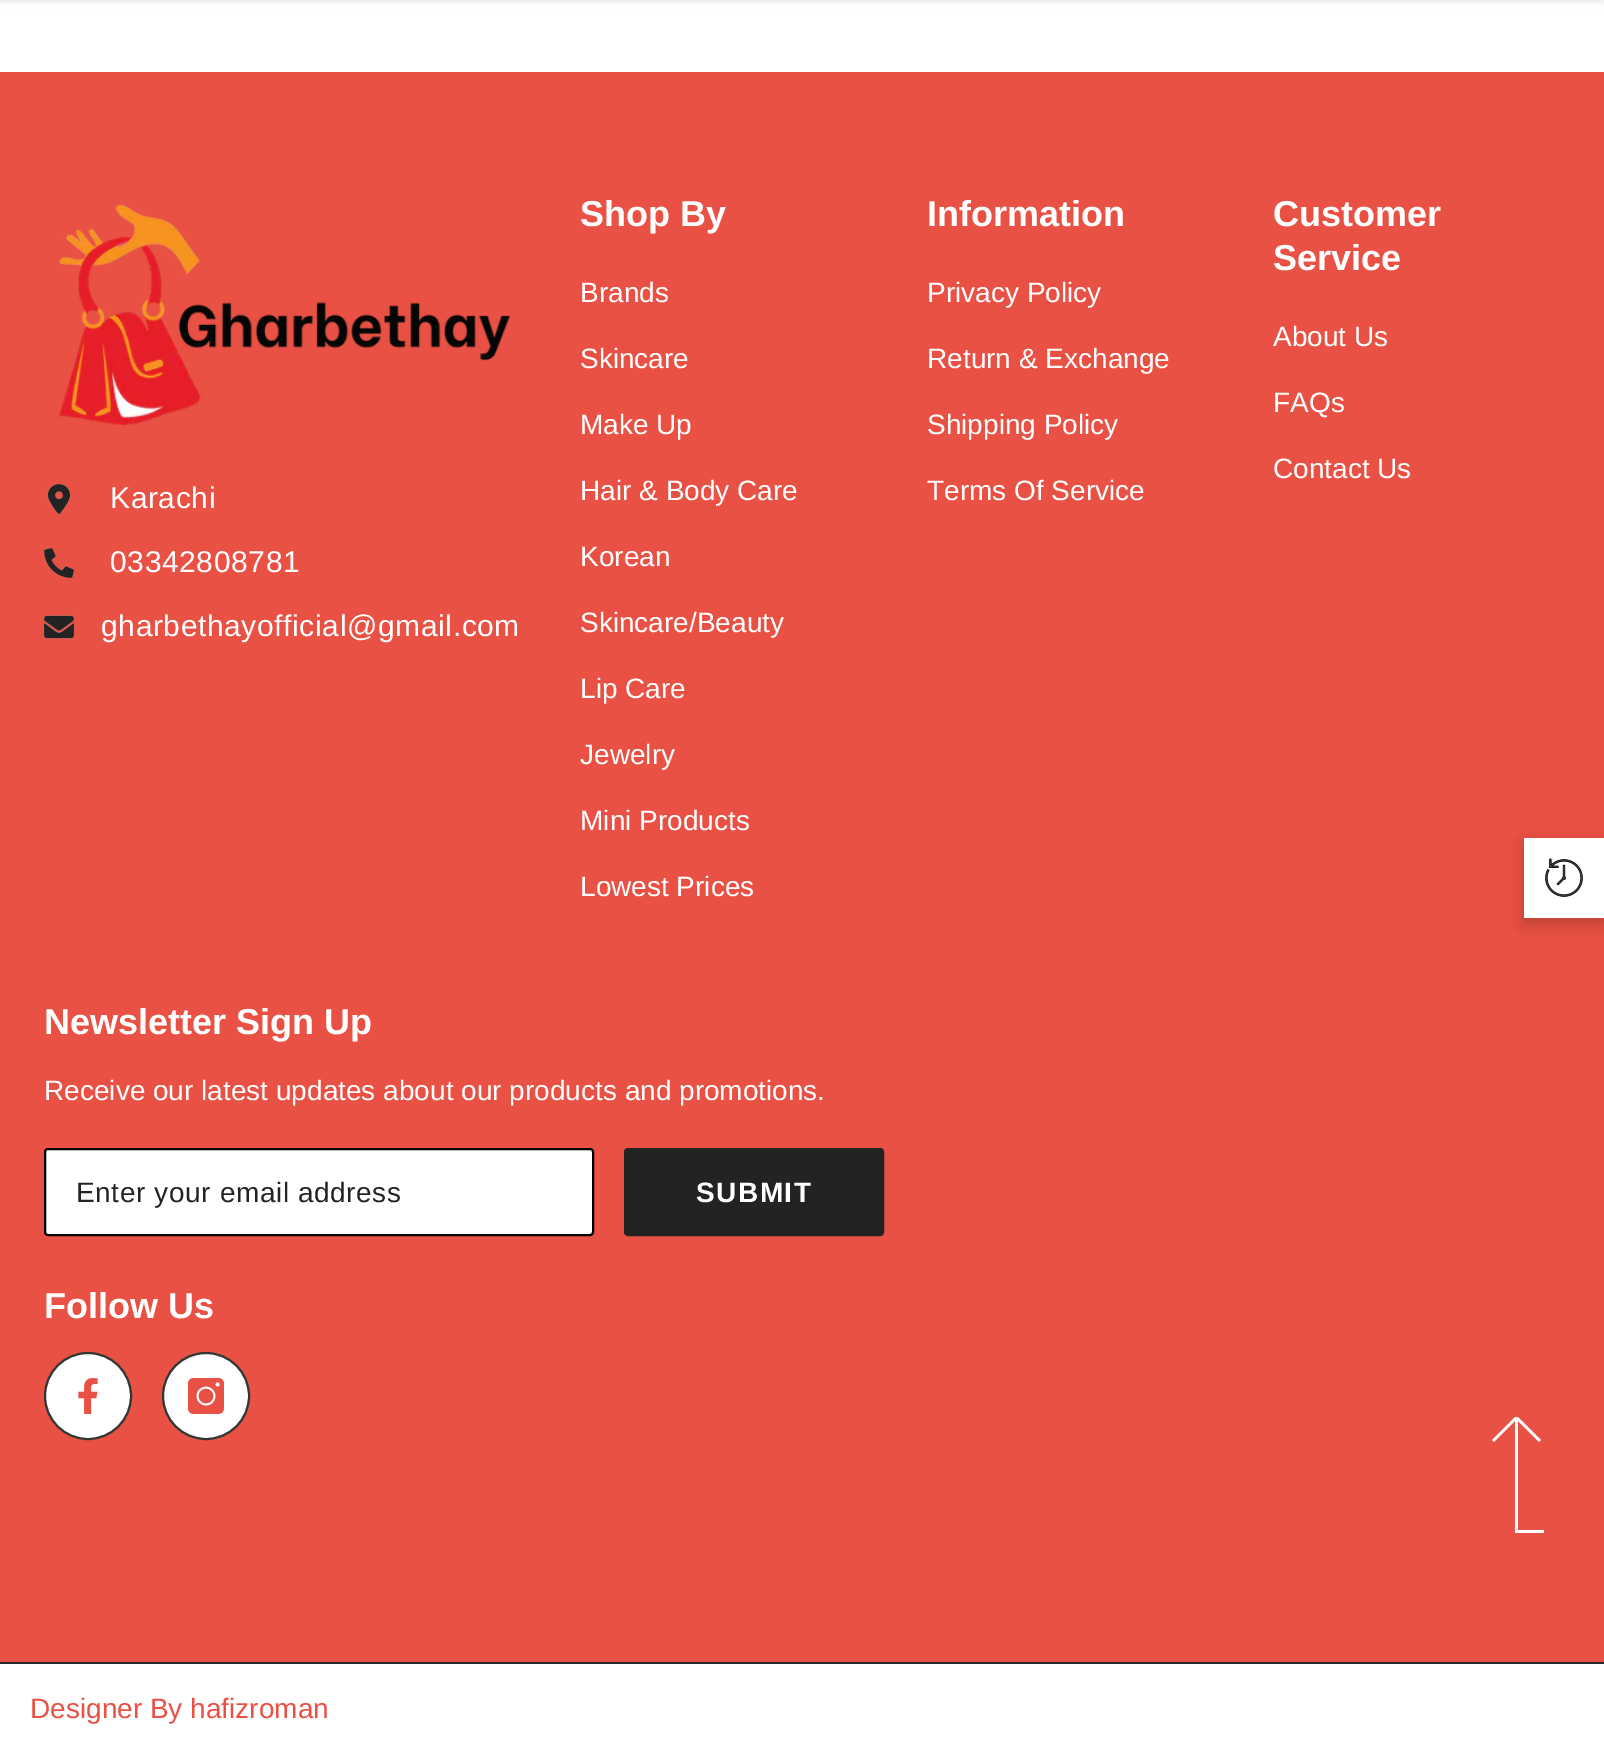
%!PS-Adobe-3.0
%%BoundingBox: 0 0 1604 1754
%%LanguageLevel: 3
%%Pages: 1
%%EndComments
%%BeginProlog
/setink { dup -16 bitshift 255 div exch dup -8 bitshift 255 and 255 div exch 255 and 255 div setrgbcolor } def
/usefont { [ exch dup neg 0 0 3 -1 roll 0 0 ] selectfont } def
/setalpha { dup .setfillconstantalpha .setstrokeconstantalpha } def
/disc { newpath 0 360 arc closepath } def
/rrect { 5 dict begin { /r /h /w /y /x } { exch def } forall
  x r add y moveto x w add y 2 copy h add r arct x w add y h add x 1 index r arct
  x y h add x y r arct x y 2 copy exch w add exch r arct closepath end } def
/softshadow { 12 dict begin { /a /b /q /h /w /y /x } { exch def } forall gsave /was 0 def
  9 -2 -9 { dup b mul 4 div /e exch def 1 sub .425 mul 2.718 exch exp 1 add a .99 .min exch div /now exch def
    1 1 now sub 1 was sub div sub setalpha /was now def
    w h .min e 2 mul add 0 gt { x e sub y e sub w e 2 mul add h e 2 mul add
      q e add b .6 mul add w h .min 2 div e add .min 0 .max rrect fill } if } for grestore end } def
/drawimage { 5 dict begin { /h /w /y /x /name } { exch def } forall
  gsave x y translate w h scale
  w h 8 [w 0 0 h 0 0] name (r) file false 3 colorimage grestore end } def
%%EndProlog
%%BeginSetup
<< /PageSize [1604 1754] /PageUsesTransparency true >> setpagedevice
%%EndSetup
%%Page: 1 1
0 .pushpdf14devicefilter
0 1754 translate 1 -1 scale
4 setmiterlimit
16#FFFFFF setink
0 0 1604 1754 rectfill
16#000000 setink
0 -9 1604 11 0 3 0.1 softshadow
16#E95144 setink
0 72 1604 1590 rectfill
/Arimo-Bold 36 usefont
16#FFFFFF setink
580 226 moveto (Shop By) show
/Arimo-Regular 28 usefont
[
    [(Brands) 580 302]
    [(Skincare) 580 368]
    [(Make Up) 580 434]
    [(Hair & Body Care) 580 500]
    [(Korean) 580 566]
    [(Skincare/Beauty) 580 632]
    [(Lip Care) 580 698]
    [(Jewelry) 580 764]
    [(Mini Products) 580 830]
    [(Lowest Prices) 580 896]
] { aload pop moveto show } forall
/Arimo-Bold 36 usefont
927 226 moveto (Information) show
/Arimo-Regular 28 usefont
[
    [(Privacy Policy) 927 302]
    [(Return & Exchange) 927 368]
    [(Shipping Policy) 927 434]
    [(Terms Of Service) 927 500]
] { aload pop moveto show } forall
/Arimo-Bold 36 usefont
1273 226 moveto (Customer) show
1273 270 moveto (Service) show
/Arimo-Regular 28 usefont
[
    [(About Us) 1273 346]
    [(FAQs) 1273 412]
    [(Contact Us) 1273 478]
] { aload pop moveto show } forall
(img1.raw) 58 204 452 222 drawimage
(img2.raw) 47 484 24 30 drawimage
/Arimo-Regular 30 usefont
110 508 moveto 0.6 0 (Karachi) ashow
(img3.raw) 44 548 30 30 drawimage
110 572 moveto 0.6 0 (03342808781) ashow
(img4.raw) 44 615 30 24 drawimage
101 636 moveto 0.6 0 (gharbethayofficial@gmail.com) ashow
/Arimo-Bold 36 usefont
44 1034 moveto (Newsletter Sign Up) show
/Arimo-Regular 28 usefont
44 1100 moveto (Receive our latest updates about our products and promotions.) show
45 1149 548 86 3 rrect gsave fill grestore
16#000000 setink
2 setlinewidth
stroke
16#232323 setink
76 1202 moveto 0.6 0 (Enter your email address) ashow
625 1149 258 86 3 rrect gsave fill grestore
stroke
/Arimo-Bold 28 usefont
16#FFFFFF setink
696 1202 moveto 1.5 0 (SUBMIT) ashow
/Arimo-Bold 36 usefont
44 1318 moveto (Follow Us) show
88 1396 43 disc gsave fill grestore
16#303733 setink
stroke
(img5.raw) 78 1378 20 36 drawimage
16#FFFFFF setink
206 1396 43 disc gsave fill grestore
16#303733 setink
stroke
(img6.raw) 188 1378 36 36 drawimage
16#282828 setink
0 1662 1604 2 rectfill
/Arimo-Regular 28 usefont
16#E95144 setink
30 1718 moveto (Designer By hafizroman) show
16#000000 setink
1524 844 80 80 0 7 0.2 softshadow
16#FFFFFF setink
1524 838 80 80 rectfill
(img7.raw) 1545 858 38 39 drawimage
1494 1442 moveto 1515 1421 lineto 1515 1533 lineto 1544 1533 lineto 1544 1530 lineto 1518 1530 lineto 1518 1421 lineto 1539 1442 lineto 1541 1440 lineto 1518 1417 lineto 1515 1417 lineto 1492 1440 lineto closepath fill
.poppdf14devicefilter showpage
%%EOF
